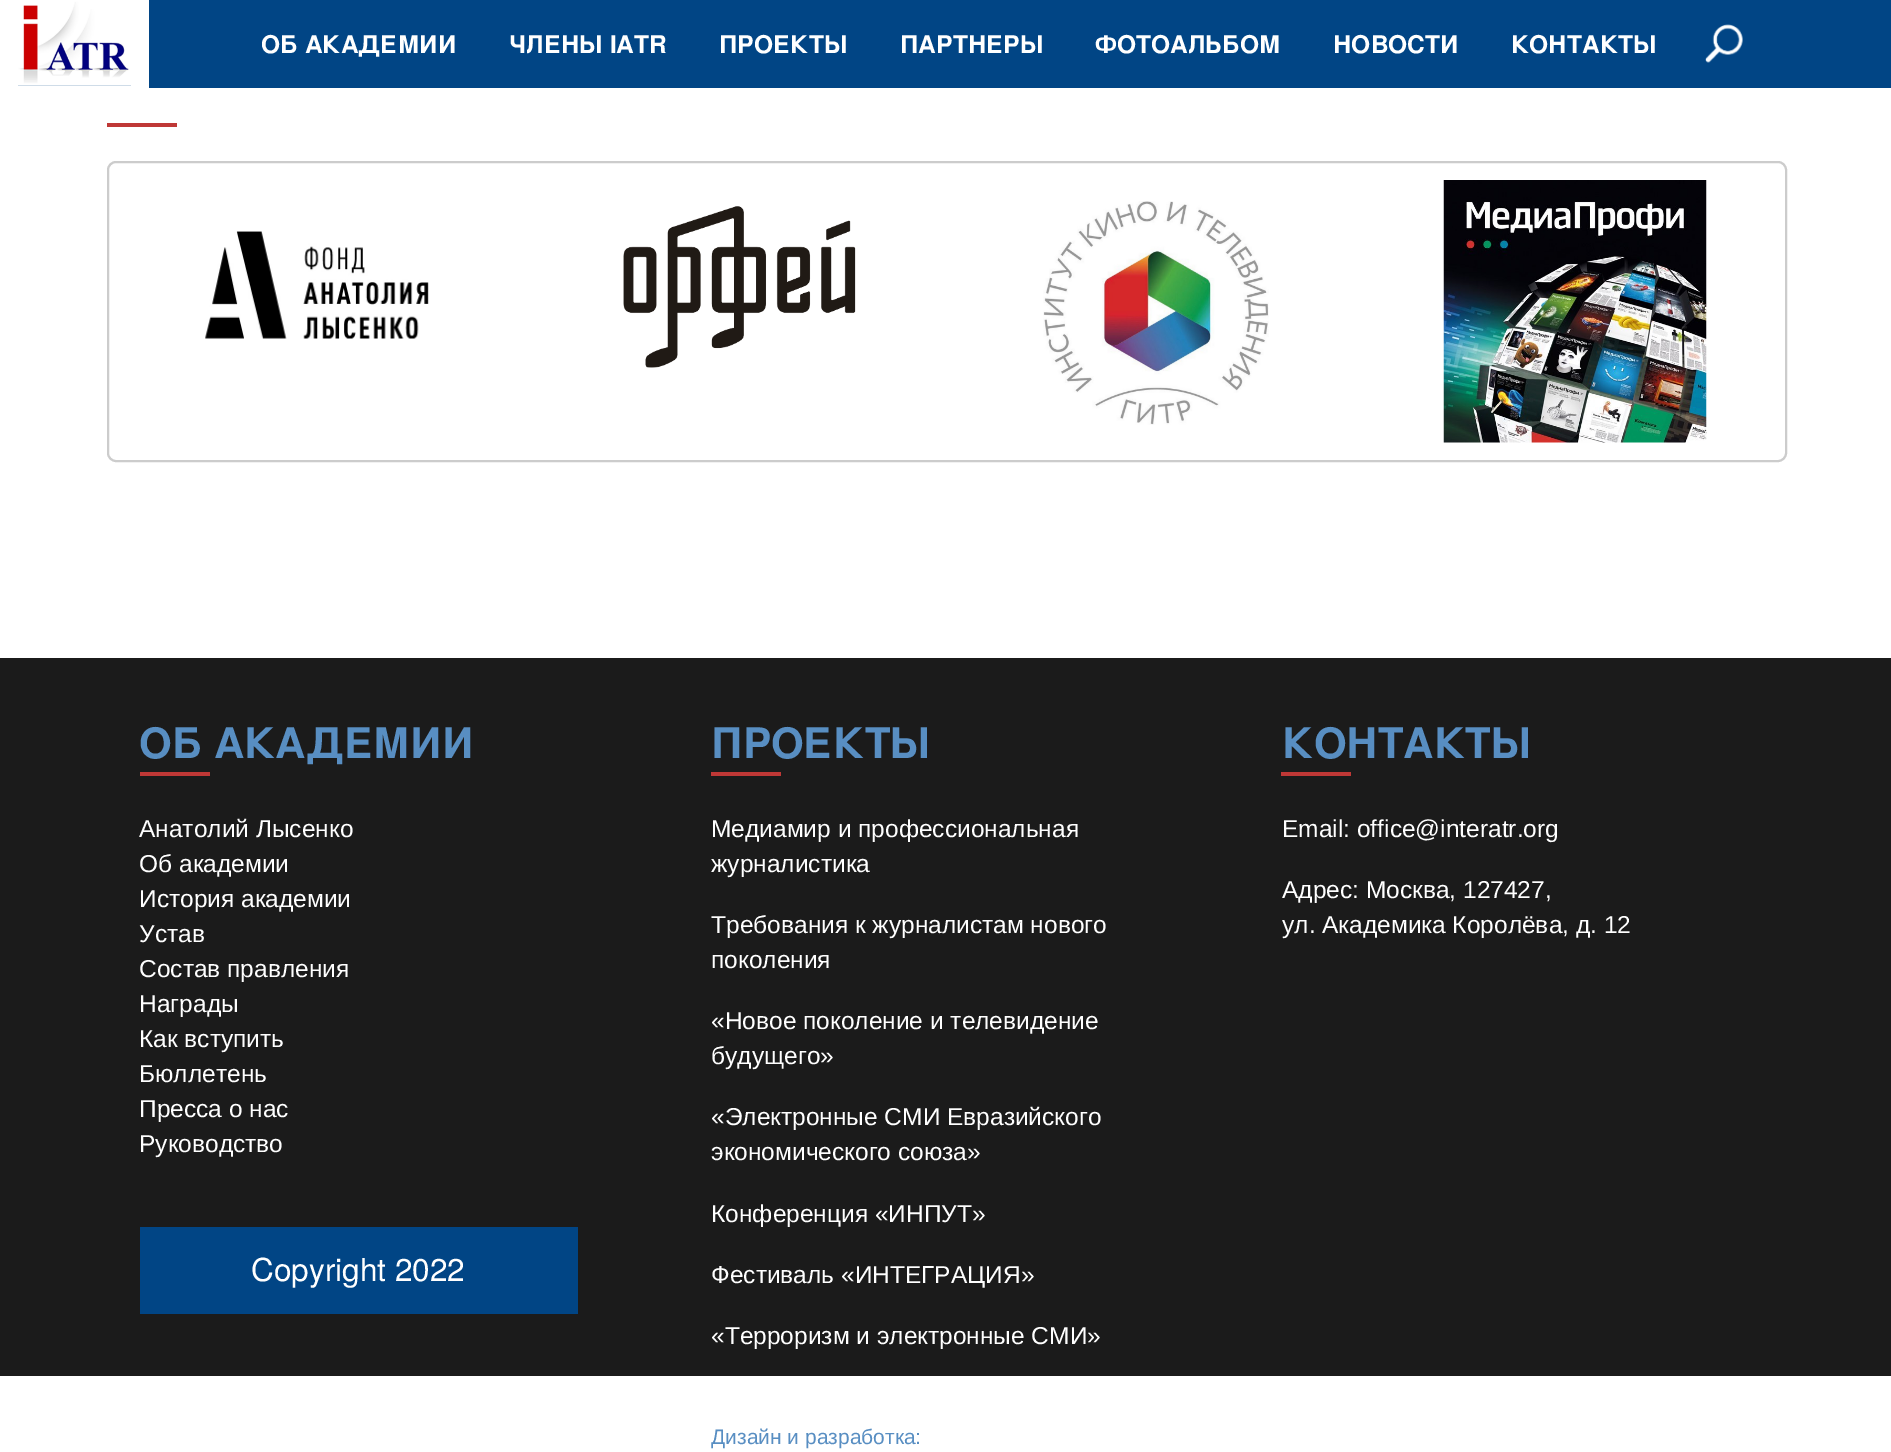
%!PS-Adobe-3.0
%%BoundingBox: 0 0 1891 1452
%%LanguageLevel: 3
%%Pages: 1
%%EndComments
%%BeginProlog
/setink { dup -16 bitshift 255 div exch dup -8 bitshift 255 and 255 div exch 255 and 255 div setrgbcolor } def
/usefont { [ exch dup neg 0 0 3 -1 roll 0 0 ] selectfont } def
/rrect { 5 dict begin { /r /h /w /y /x } { exch def } forall
  x r add y moveto x w add y 2 copy h add r arct x w add y h add x 1 index r arct
  x y h add x y r arct x y 2 copy exch w add exch r arct closepath end } def
/drawimage { 5 dict begin { /h /w /y /x /name } { exch def } forall
  gsave x y translate w h scale
  w h 8 [w 0 0 h 0 0] name (r) file false 3 colorimage grestore end } def
%%EndProlog
%%BeginSetup
<< /PageSize [1891 1452] >> setpagedevice
%%EndSetup
%%Page: 1 1
0 1452 translate 1 -1 scale
4 setmiterlimit
16#FFFFFF setink
0 0 1891 1452 rectfill
[
    [18 0 1873 88 16#014585]
    [131 0 18 86 16#FFFFFF]
    [18 86 131 2 16#FFFFFF]
] { aload pop setink rectfill } forall
(img1.raw) 18 0 113 86 drawimage
(img2.raw) 1705 24 38 39 drawimage
/TeXGyreHeros-Bold 24.5 usefont
[
    [(ОБ АКАДЕМИИ) 261 53]
    [(ЧЛЕНЫ IATR) 509 53]
    [(ПРОЕКТЫ) 719 53]
    [(ПАРТНЕРЫ) 900 53]
    [(ФОТОАЛЬБОМ) 1095 53]
    [(НОВОСТИ) 1333 53]
    [(КОНТАКТЫ) 1511 53]
] { aload pop moveto show } forall
16#BF3836 setink
107 123 70 4 rectfill
16#CCCCCC setink
2 setlinewidth
108 162 1678 299 8 rrect stroke
(img3.raw) 205 231 224 108 drawimage
(img4.raw) 623 206 233 162 drawimage
(img5.raw) 1043 201 226 224 drawimage
(img6.raw) 1443 180 264 263 drawimage
16#1B1B1B setink
0 658 1891 718 rectfill
/TeXGyreHeros-Bold 42 usefont
16#588EC2 setink
139 758 moveto (ОБ АКАДЕМИИ) show
16#BF3836 setink
140 772 70 4 rectfill
/LiberationSans-Regular 24.5 usefont
16#FFFFFF setink
[
    [(Анатолий Лысенко) 139 837]
    [(Об академии) 139 872]
    [(История академии) 139 907]
    [(Устав) 139 942]
    [(Состав правления) 139 977]
    [(Награды) 139 1012]
    [(Как вступить) 139 1047]
    [(Бюллетень) 139 1082]
    [(Пресса о нас) 139 1117]
    [(Руководство) 139 1152]
] { aload pop moveto show } forall
16#014585 setink
140 1227 438 87 rectfill
/TeXGyreHeros-Regular 31.5 usefont
16#FFFFFF setink
251 1281 moveto (Copyright 2022) show
/TeXGyreHeros-Bold 42 usefont
16#588EC2 setink
711 758 moveto (ПРОЕКТЫ) show
16#BF3836 setink
711 772 70 4 rectfill
/LiberationSans-Regular 24.5 usefont
16#FFFFFF setink
[
    [(Медиамир и профессиональная) 711 837]
    [(журналистика) 711 872]
    [(Требования к журналистам нового) 711 933]
    [(поколения) 711 968]
    [(«Новое поколение и телевидение) 711 1029]
    [(будущего») 711 1064]
    [(«Электронные СМИ Евразийского) 711 1125]
    [(экономического союза») 711 1160]
    [(Конференция «ИНПУТ») 711 1222]
    [(Фестиваль «ИНТЕГРАЦИЯ») 711 1283]
    [(«Терроризм и электронные СМИ») 711 1344]
] { aload pop moveto show } forall
/LiberationSans-Regular 21 usefont
16#588EC2 setink
711 1444 moveto (Дизайн и разработка:) show
/TeXGyreHeros-Bold 42 usefont
1282 758 moveto (КОНТАКТЫ) show
16#BF3836 setink
1281 772 70 4 rectfill
/LiberationSans-Regular 24.5 usefont
16#FFFFFF setink
[
    [(Email: office@interatr.org) 1282 837]
    [(Адрес: Москва, 127427,) 1282 898]
    [(ул. Академика Королёва, д. 12) 1282 933]
] { aload pop moveto show } forall
showpage
%%EOF
